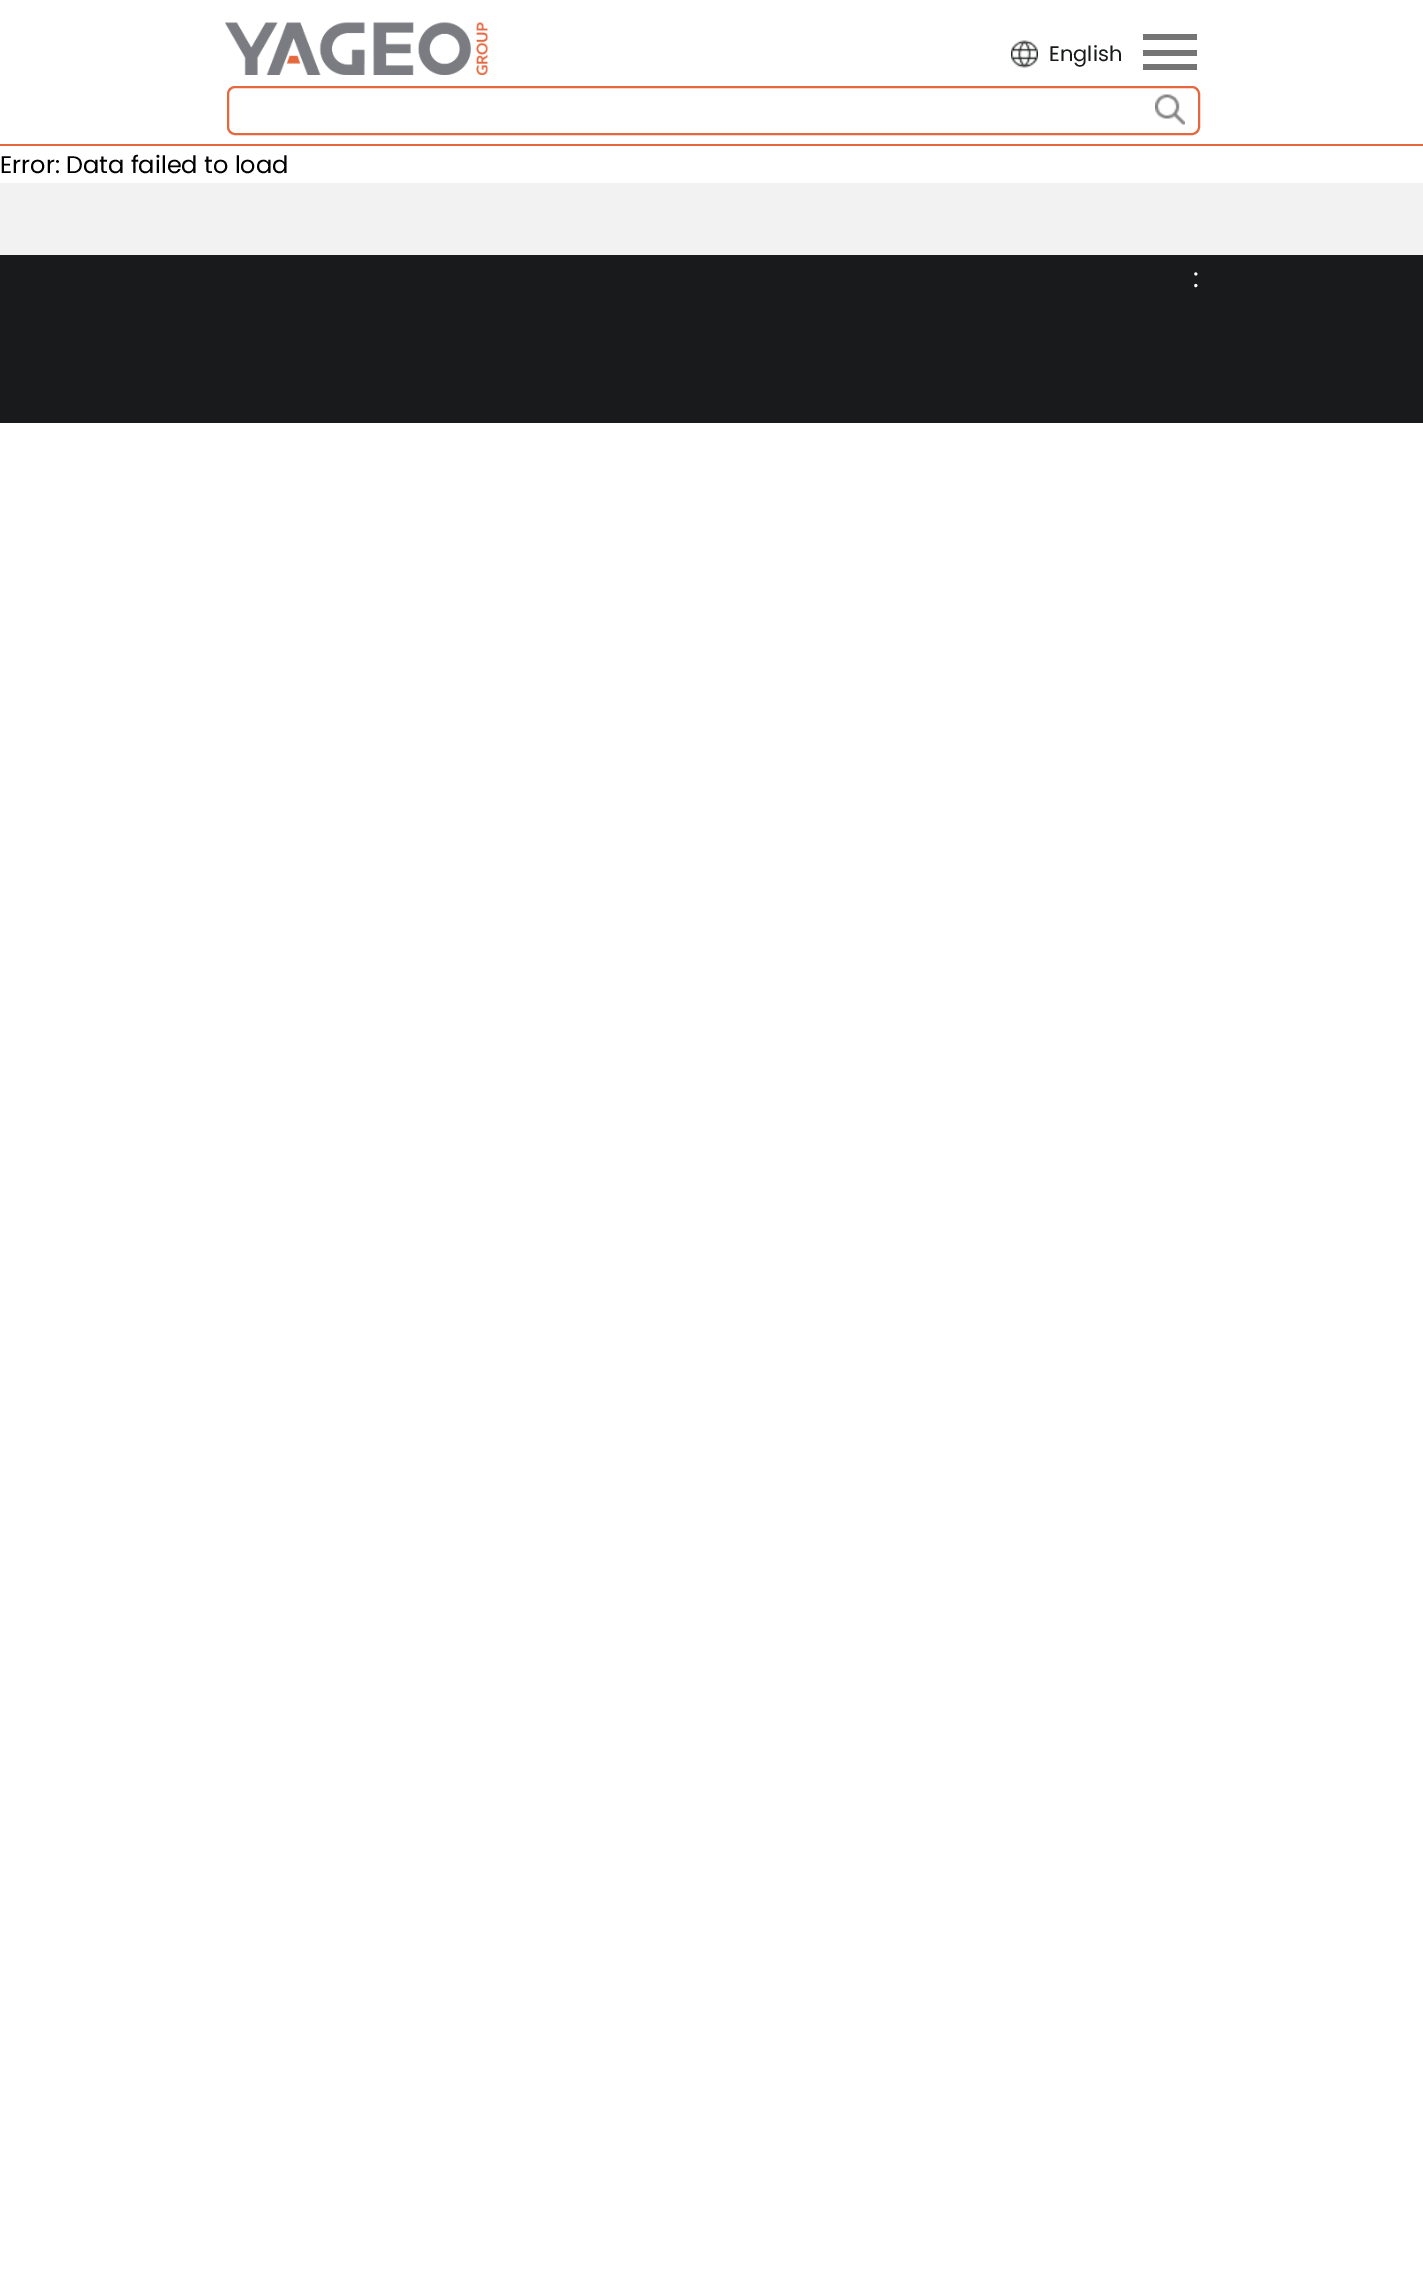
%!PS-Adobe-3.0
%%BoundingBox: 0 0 1423 2274
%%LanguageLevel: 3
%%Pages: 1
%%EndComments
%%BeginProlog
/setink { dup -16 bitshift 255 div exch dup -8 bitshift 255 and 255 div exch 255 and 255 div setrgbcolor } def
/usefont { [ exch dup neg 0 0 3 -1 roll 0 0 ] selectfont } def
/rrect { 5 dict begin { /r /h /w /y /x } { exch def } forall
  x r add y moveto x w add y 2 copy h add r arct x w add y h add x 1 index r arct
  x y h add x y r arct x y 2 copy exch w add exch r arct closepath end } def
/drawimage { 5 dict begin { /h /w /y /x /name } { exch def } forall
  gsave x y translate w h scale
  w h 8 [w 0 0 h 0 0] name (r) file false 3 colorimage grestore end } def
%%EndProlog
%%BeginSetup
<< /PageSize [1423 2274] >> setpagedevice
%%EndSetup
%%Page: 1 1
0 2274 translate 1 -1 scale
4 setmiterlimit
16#FFFFFF setink
0 0 1423 2274 rectfill
16#E5673E setink
0 144 1423 2 rectfill
(img1.raw) 225 22 263 53 drawimage
(img2.raw) 1011 40 27 28 drawimage
/Poppins-Regular 21 usefont
16#191A1B setink
1049 61 moveto (English) show
16#757575 setink
1143 70 moveto 1197 70 lineto 1197 64 lineto 1143 64 lineto closepath 1143 56 moveto 1197 56 lineto 1197 50 lineto 1143 50 lineto closepath 1143 34 moveto 1143 40 lineto 1197 40 lineto 1197 34 lineto closepath fill
16#E5673E setink
2 setlinewidth
228 87 971 47 7 rrect stroke
(img3.raw) 1155 94 30 31 drawimage
/Poppins-Regular 24 usefont
16#000000 setink
0 173 moveto (Error: Data failed to load) show
16#F2F2F2 setink
0 183 1423 72 rectfill
16#191A1B setink
0 255 1423 168 rectfill
/Poppins-Regular 27 usefont
16#FFFFFF setink
1193 287 moveto (:) show
showpage
%%EOF
